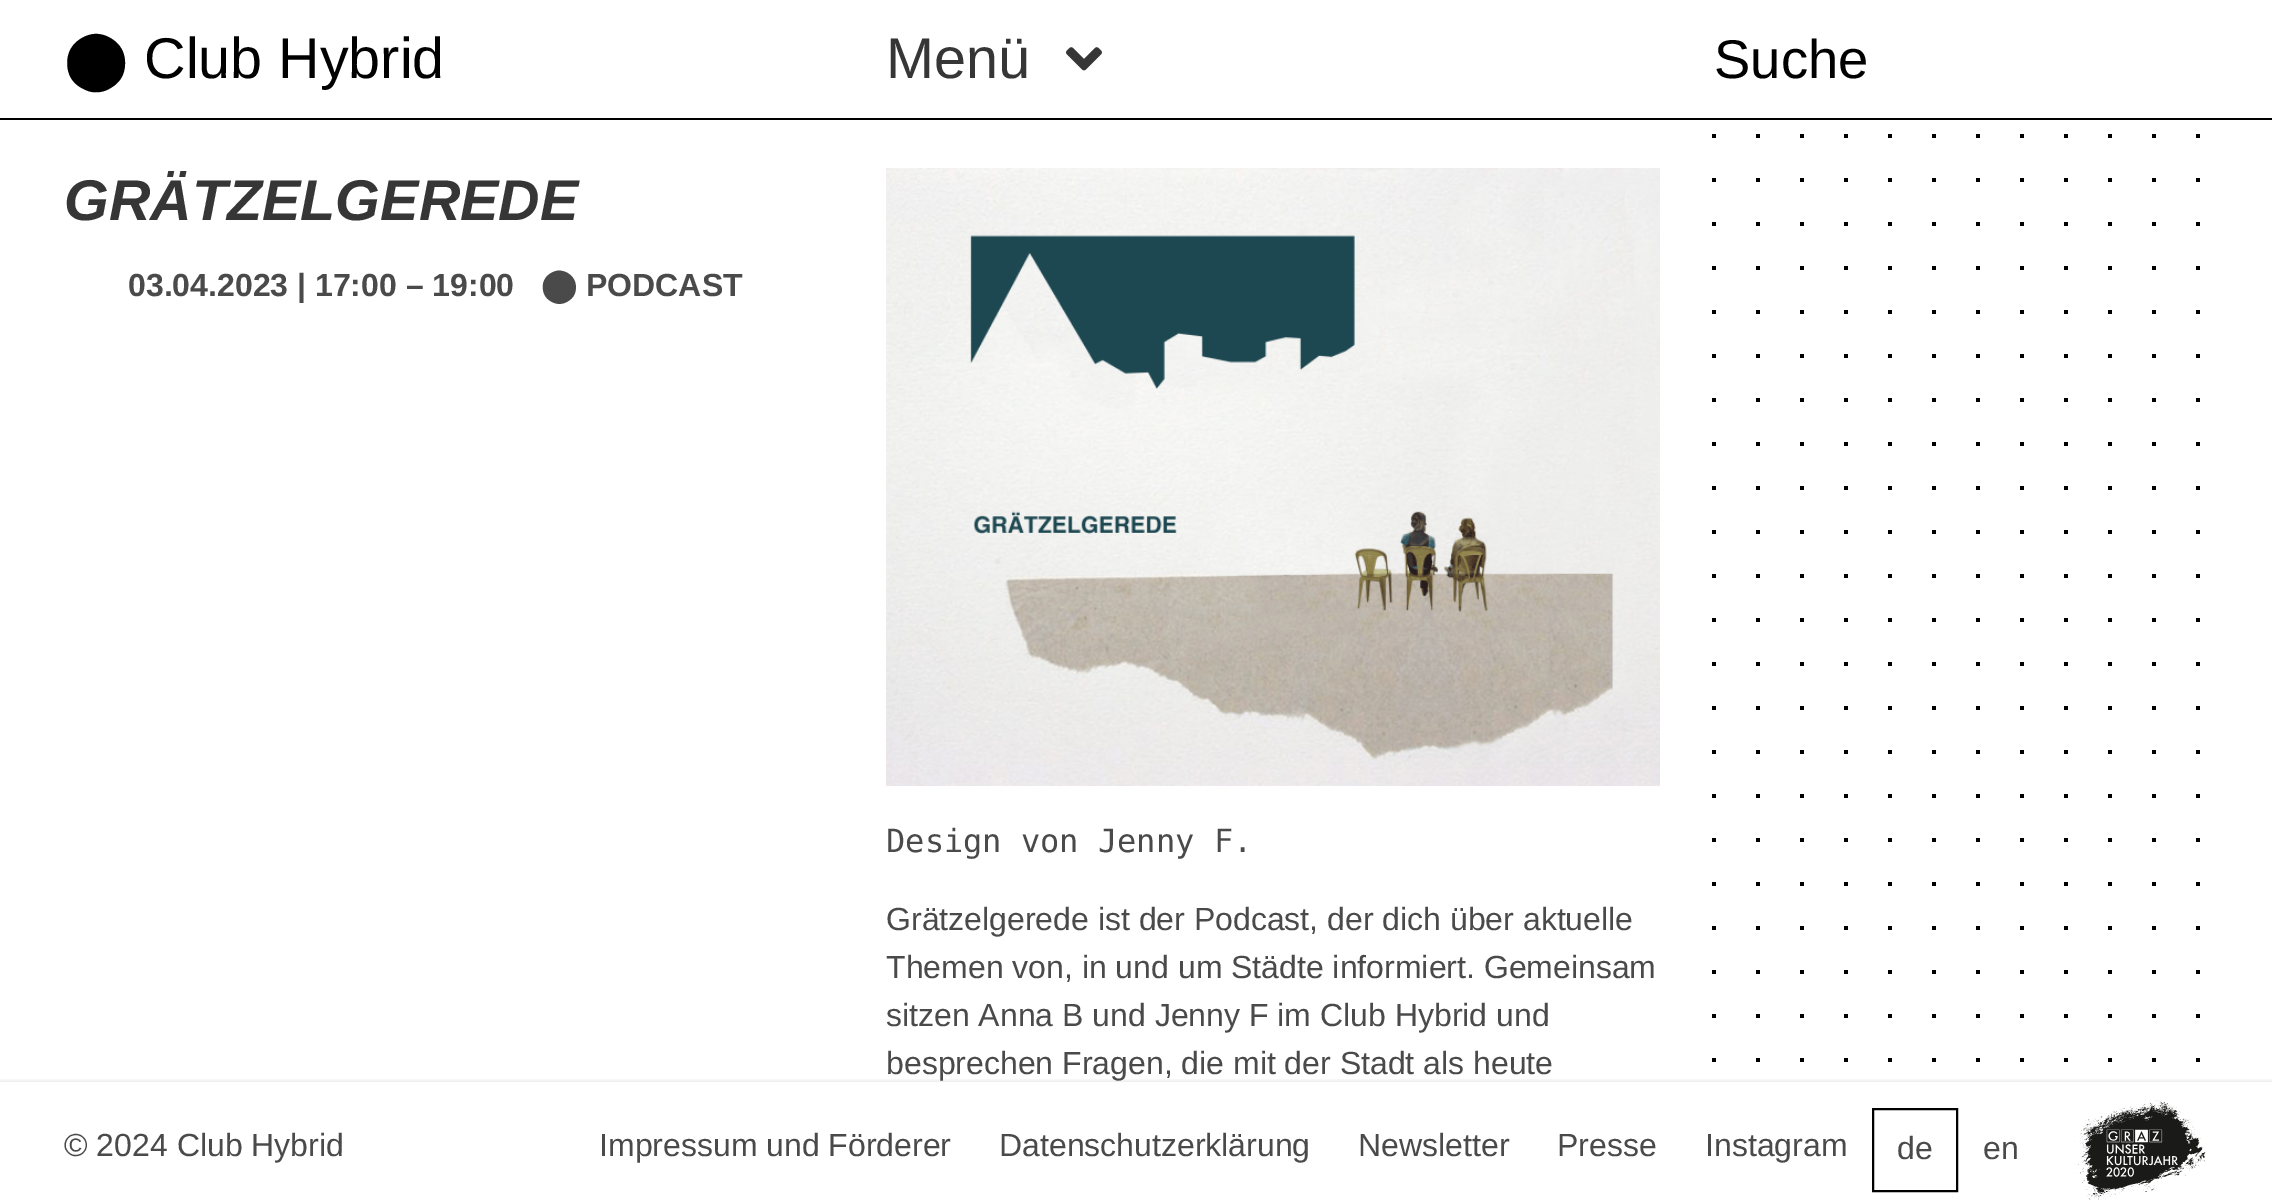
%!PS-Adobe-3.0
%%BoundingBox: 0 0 2272 1204
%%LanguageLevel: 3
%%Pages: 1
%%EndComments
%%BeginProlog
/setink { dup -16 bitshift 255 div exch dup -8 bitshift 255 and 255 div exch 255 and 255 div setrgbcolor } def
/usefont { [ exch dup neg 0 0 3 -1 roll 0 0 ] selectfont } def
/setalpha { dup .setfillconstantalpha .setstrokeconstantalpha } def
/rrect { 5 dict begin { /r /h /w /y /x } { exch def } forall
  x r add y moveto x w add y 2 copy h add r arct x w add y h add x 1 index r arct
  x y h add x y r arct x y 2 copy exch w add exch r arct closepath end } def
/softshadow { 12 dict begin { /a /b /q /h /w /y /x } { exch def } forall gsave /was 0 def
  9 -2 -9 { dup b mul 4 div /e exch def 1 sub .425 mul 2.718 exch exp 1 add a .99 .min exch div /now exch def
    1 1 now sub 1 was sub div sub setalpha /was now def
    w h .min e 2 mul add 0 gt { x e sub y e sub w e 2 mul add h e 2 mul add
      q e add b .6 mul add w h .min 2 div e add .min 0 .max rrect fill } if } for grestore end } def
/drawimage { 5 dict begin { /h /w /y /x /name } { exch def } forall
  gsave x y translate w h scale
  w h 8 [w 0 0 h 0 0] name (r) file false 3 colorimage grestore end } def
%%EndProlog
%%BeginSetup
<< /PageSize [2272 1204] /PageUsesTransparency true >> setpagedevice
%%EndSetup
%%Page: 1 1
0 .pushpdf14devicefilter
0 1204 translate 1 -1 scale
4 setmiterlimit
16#FFFFFF setink
0 0 2272 1204 rectfill
16#000000 setink
0 118 2272 2 rectfill
/DejaVuSans-Regular 57.5 usefont
64 78 moveto (⬤) show
/LiberationSans-Regular 57.5 usefont
144 78 moveto (Club Hybrid) show
16#363636 setink
886 78 moveto (Menü) show
(img1.raw) 1066 47 36 24 drawimage
/LiberationSans-Regular 54.5 usefont
16#000000 setink
1714 78 moveto (Suche) show
/LiberationSans-BoldItalic 57.5 usefont
16#363636 setink
64 220 moveto (GRÄTZELGEREDE) show
/LiberationSans-Bold 32 usefont
16#4A4A4A setink
128 296 moveto (03.04.2023 | 17:00 – 19:00) show
/DejaVuSans-Bold 32 usefont
541 296 moveto (⬤) show
/LiberationSans-Bold 32 usefont
586 296 moveto (PODCAST) show
(img2.raw) 886 168 774 618 drawimage
/DejaVuSansMono-Regular 32 usefont
886 852 moveto (Design von Jenny F.) show
/LiberationSans-Regular 32 usefont
[
    [(Grätzelgerede ist der Podcast, der dich über aktuelle) 886 930]
    [(Themen von, in und um Städte informiert. Gemeinsam) 886 978]
    [(sitzen Anna B und Jenny F im Club Hybrid und) 886 1026]
    [(besprechen Fragen, die mit der Stadt als heute) 886 1074]
] { aload pop moveto show } forall
16#000000 setink
1712 134 488 928 rectfill
(img3.raw) 1712 120 488 962 drawimage
[
    [1716 134 40 928 16#FFFFFF]
    [1760 134 40 928 16#FFFFFF]
    [1804 134 40 928 16#FFFFFF]
    [1848 134 40 928 16#FFFFFF]
    [1892 134 40 928 16#FFFFFF]
    [1936 134 40 928 16#FFFFFF]
    [1980 134 40 928 16#FFFFFF]
    [2024 134 40 928 16#FFFFFF]
    [2068 134 40 928 16#FFFFFF]
    [2112 134 40 928 16#FFFFFF]
    [2156 134 40 928 16#FFFFFF]
] { aload pop setink rectfill } forall
gsave
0 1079 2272 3 rectclip
16#141414 setink
0 1080 2272 122 0 2 0.07 softshadow
grestore
16#4A4A4A setink
[
    [(© 2024 Club Hybrid) 64 1156]
    [(Impressum und Förderer) 599 1156]
    [(Datenschutzerklärung) 999 1156]
    [(Newsletter) 1358 1156]
    [(Presse) 1557 1156]
    [(Instagram) 1705 1156]
] { aload pop moveto show } forall
16#000000 setink
2 setlinewidth
1873 1109 84 82 rectstroke
16#4A4A4A setink
1897 1159 moveto (de) show
1983 1159 moveto (en) show
(img4.raw) 2074 1100 132 100 drawimage
.poppdf14devicefilter showpage
%%EOF
